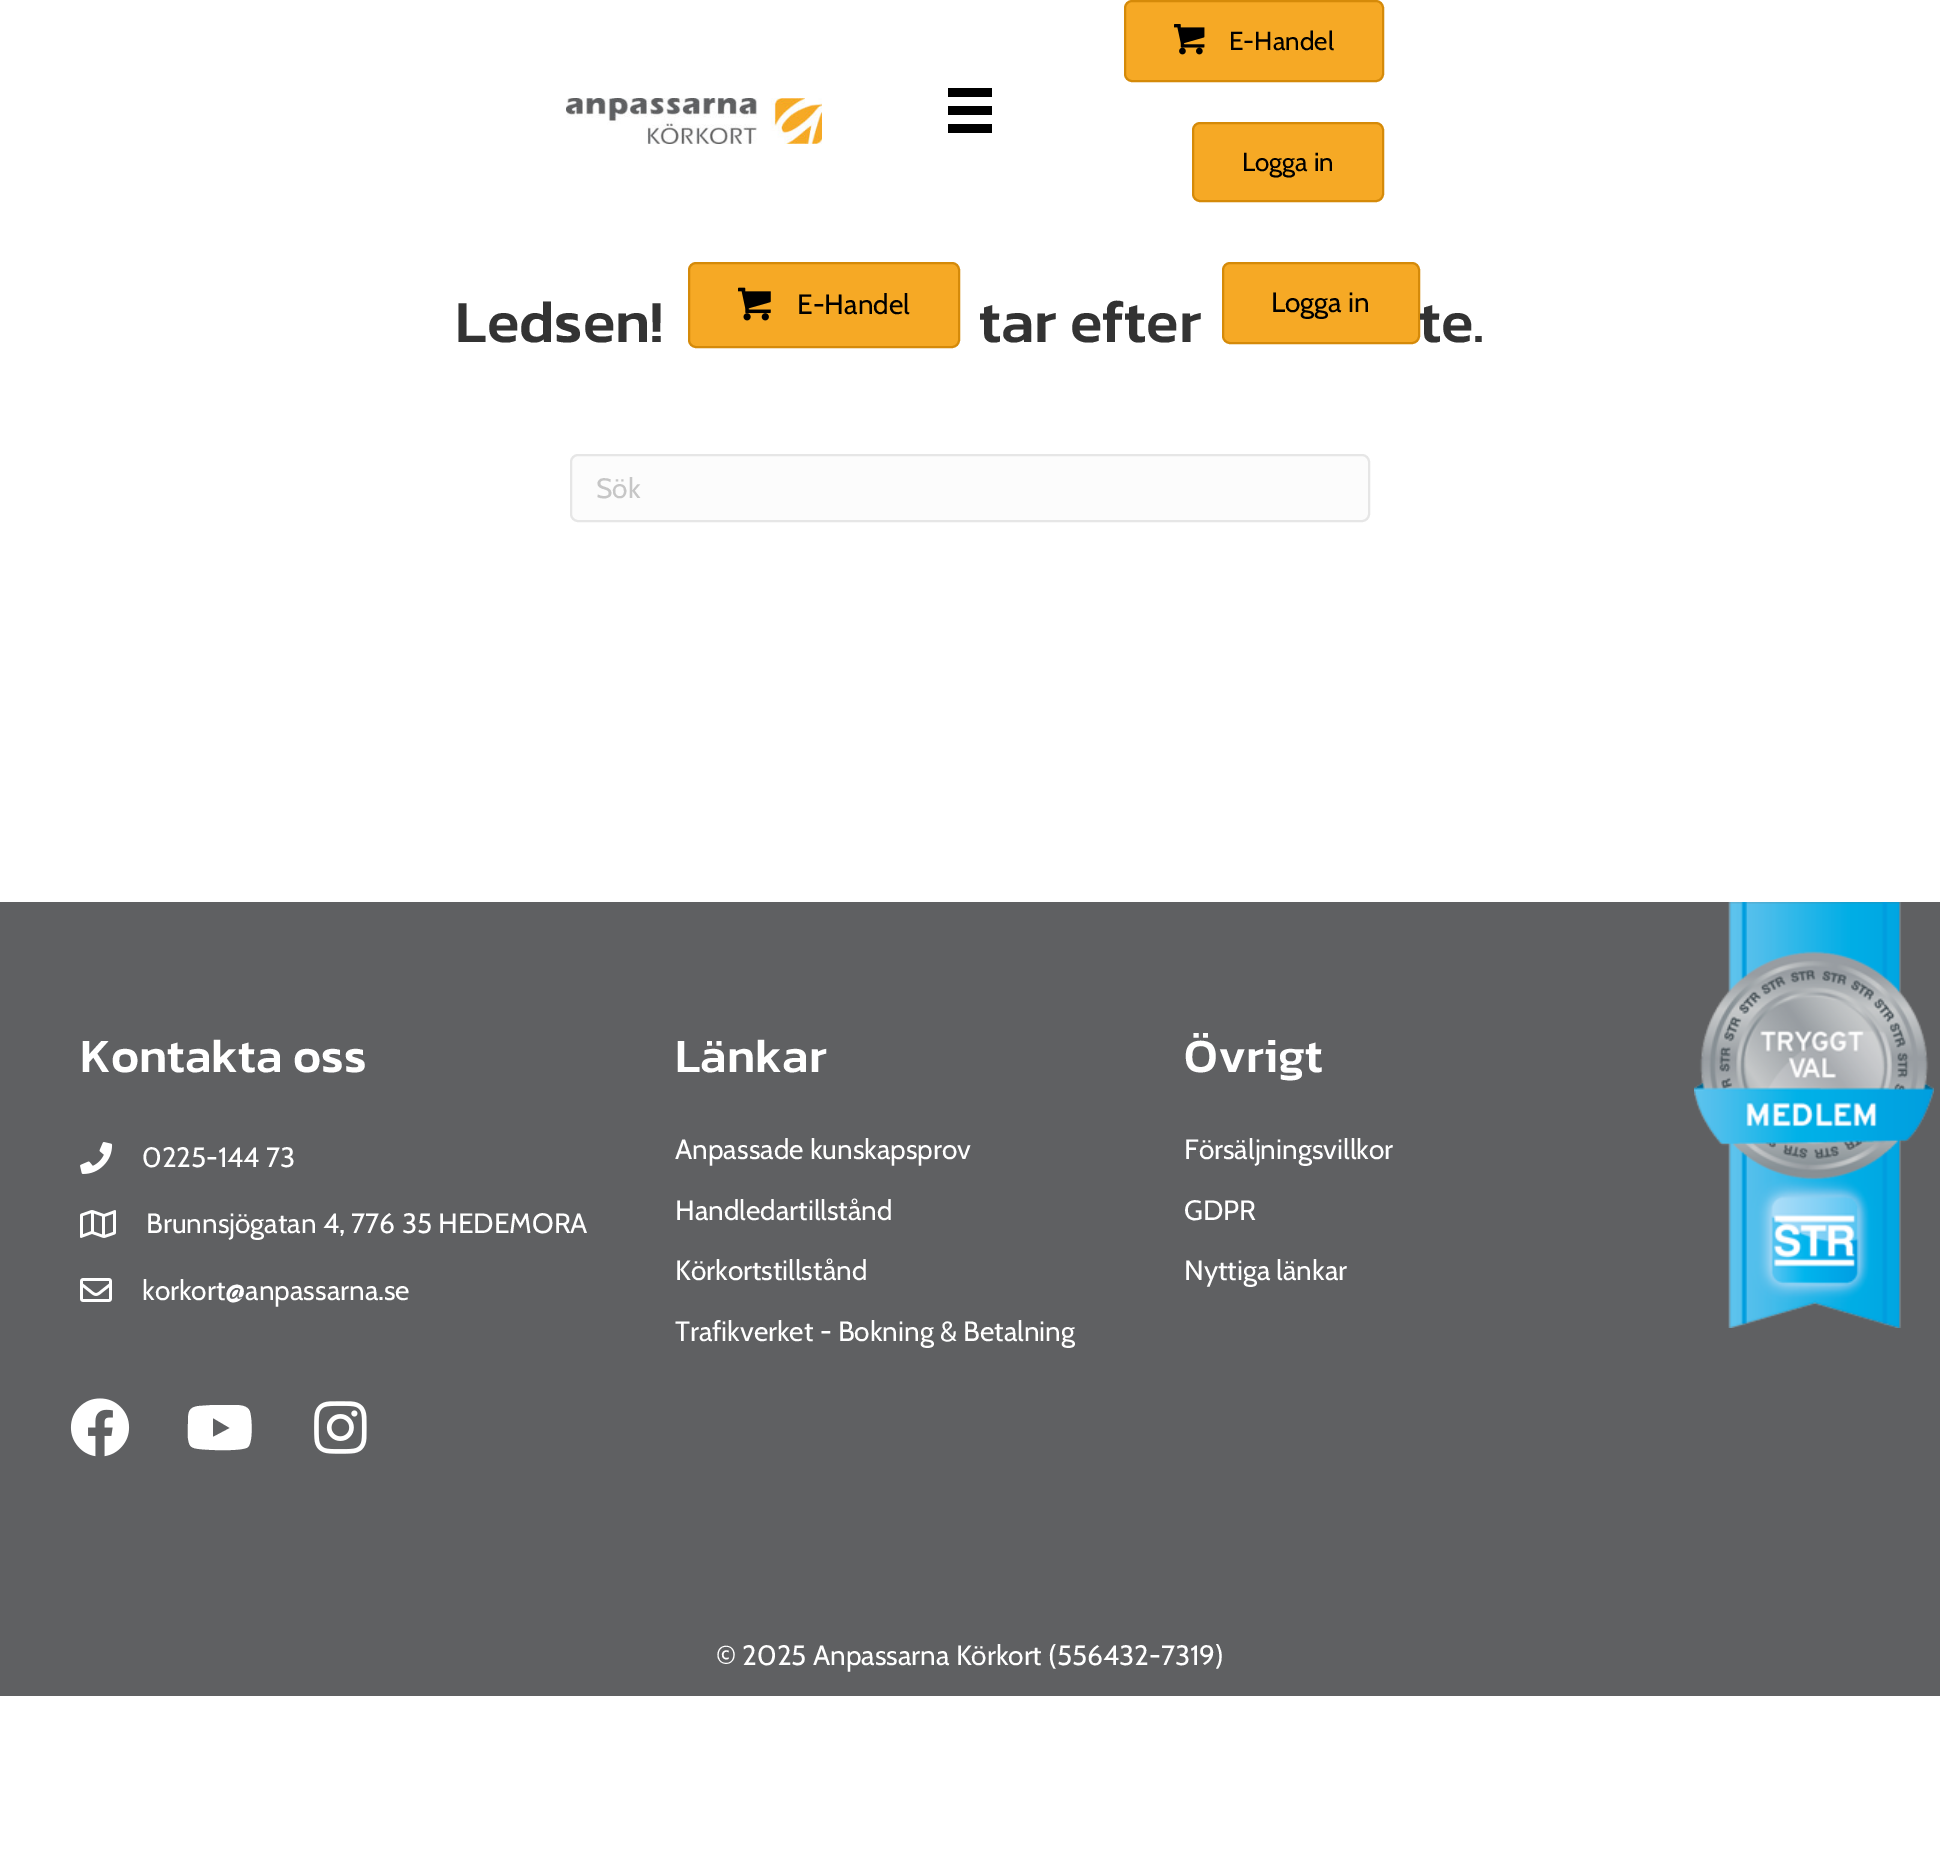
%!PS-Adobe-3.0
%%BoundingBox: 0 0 1940 1866
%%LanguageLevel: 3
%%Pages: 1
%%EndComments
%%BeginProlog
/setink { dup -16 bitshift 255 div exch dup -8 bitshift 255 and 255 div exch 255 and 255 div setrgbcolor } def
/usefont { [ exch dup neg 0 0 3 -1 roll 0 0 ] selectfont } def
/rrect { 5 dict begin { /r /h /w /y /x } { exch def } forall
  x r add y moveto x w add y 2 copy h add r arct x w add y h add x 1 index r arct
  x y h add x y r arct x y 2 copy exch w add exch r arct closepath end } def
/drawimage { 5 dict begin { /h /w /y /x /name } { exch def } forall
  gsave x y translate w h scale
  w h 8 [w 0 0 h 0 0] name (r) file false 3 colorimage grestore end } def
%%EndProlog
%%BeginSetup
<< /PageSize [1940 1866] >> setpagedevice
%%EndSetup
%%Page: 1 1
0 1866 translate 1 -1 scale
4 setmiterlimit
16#FFFFFF setink
0 0 1940 1866 rectfill
(img1.raw) 566 98 256 46 drawimage
[
    [948 88 44 9 16#000000]
    [948 106 44 9 16#000000]
    [948 124 44 9 16#000000]
] { aload pop setink rectfill } forall
16#F6A925 setink
1125 1 258 80 7 rrect gsave fill grestore
16#D58A09 setink
2 setlinewidth
stroke
(img2.raw) 1174 24 31 31 drawimage
/Cabin-Regular 26 usefont
16#000000 setink
1229 50 moveto (E-Handel) show
16#F6A925 setink
1193 123 190 78 7 rrect gsave fill grestore
16#D58A09 setink
stroke
16#000000 setink
1242 171 moveto (Logga in) show
16#F6A925 setink
689 263 270 84 7 rrect gsave fill grestore
16#D58A09 setink
stroke
(img3.raw) 738 287 33 34 drawimage
/Cabin-Regular 28 usefont
16#000000 setink
797 314 moveto (E-Handel) show
16#F6A925 setink
1223 263 196 80 7 rrect gsave fill grestore
16#D58A09 setink
stroke
16#000000 setink
1271 312 moveto (Logga in) show
/Kanit-Medium 60 usefont
16#333333 setink
[
    [(Ledsen!) 455 342]
    [(tar efter) 979 342]
    [(te.) 1419 342]
] { aload pop moveto show } forall
16#FCFCFC setink
571 455 798 66 7 rrect gsave fill grestore
16#E6E6E6 setink
stroke
/Cabin-Regular 28 usefont
16#C6C6C6 setink
596 498 moveto (Sök) show
16#5F6062 setink
0 902 1940 794 rectfill
/Kanit-Medium 48 usefont
16#FFFFFF setink
80 1072 moveto (Kontakta oss) show
(img4.raw) 80 1142 33 32 drawimage
/Cabin-Regular 28 usefont
142 1167 moveto (0225-144 73) show
(img5.raw) 80 1210 36 28 drawimage
146 1233 moveto (Brunnsjögatan 4, 776 35 HEDEMORA) show
(img6.raw) 80 1278 32 24 drawimage
142 1300 moveto (korkort@anpassarna.se) show
(img7.raw) 70 1398 60 59 drawimage
250 1412 moveto 252 1419 253 1442 248 1447 curveto 243 1452 198 1450 194 1448 curveto 191 1447 190 1446 189 1443 curveto 187 1437 188 1429 188 1423 curveto 188 1413 188 1407 199 1406 curveto 213 1405 lineto 233 1405 lineto 239 1405 248 1405 250 1412 curveto closepath 213 1437 moveto 230 1428 lineto 213 1418 lineto closepath fill
(img8.raw) 314 1401 53 53 drawimage
/Kanit-Medium 48 usefont
675 1072 moveto (Länkar) show
/Cabin-Regular 28 usefont
[
    [(Anpassade kunskapsprov) 675 1159]
    [(Handledartillstånd) 675 1220]
    [(Körkortstillstånd) 675 1280]
    [(Trafikverket - Bokning & Betalning) 675 1341]
] { aload pop moveto show } forall
/Kanit-Medium 48 usefont
1184 1072 moveto (Övrigt) show
/Cabin-Regular 28 usefont
[
    [(Försäljningsvillkor) 1184 1159]
    [(GDPR) 1184 1220]
    [(Nyttiga länkar) 1184 1280]
] { aload pop moveto show } forall
(img9.raw) 1694 902 240 426 drawimage
716 1665 moveto (© 2025 Anpassarna Körkort \(556432-7319\)) show
showpage
%%EOF
